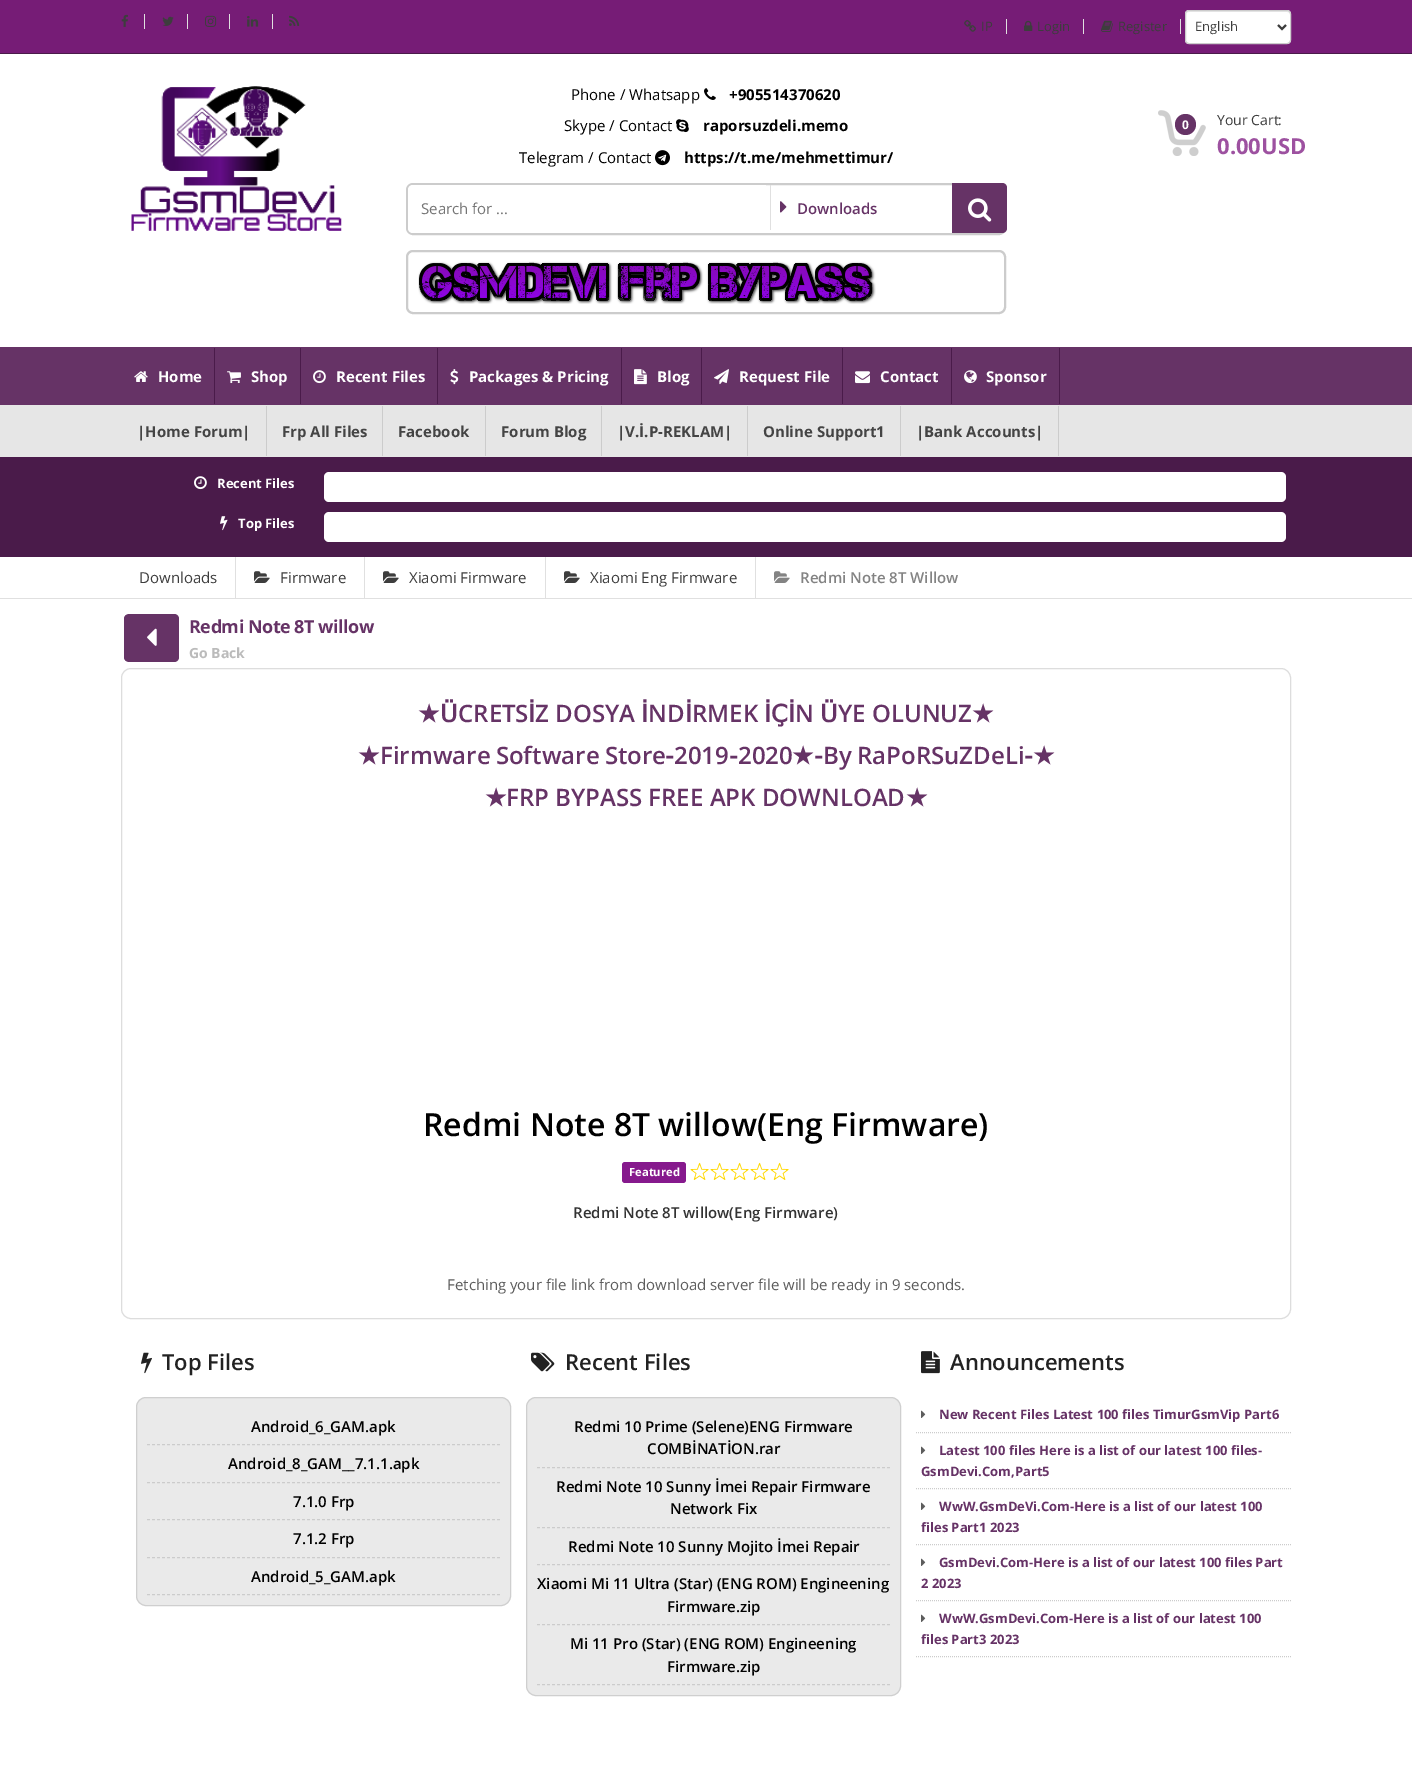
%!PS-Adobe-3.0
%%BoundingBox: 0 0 1412 1781
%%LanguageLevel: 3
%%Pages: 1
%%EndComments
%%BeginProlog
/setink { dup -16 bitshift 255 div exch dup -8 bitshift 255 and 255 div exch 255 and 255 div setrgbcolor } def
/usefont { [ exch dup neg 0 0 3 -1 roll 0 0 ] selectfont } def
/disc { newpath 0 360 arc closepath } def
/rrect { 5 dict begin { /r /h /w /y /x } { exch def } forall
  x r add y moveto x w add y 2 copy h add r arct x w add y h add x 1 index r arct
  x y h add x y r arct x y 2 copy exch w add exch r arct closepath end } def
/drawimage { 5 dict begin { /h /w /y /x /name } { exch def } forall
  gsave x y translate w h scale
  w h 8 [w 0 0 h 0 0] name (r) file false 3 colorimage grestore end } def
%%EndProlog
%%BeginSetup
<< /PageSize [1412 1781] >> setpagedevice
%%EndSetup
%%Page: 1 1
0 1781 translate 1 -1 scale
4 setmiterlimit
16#FFFFFF setink
0 0 1412 1781 rectfill
[
    [0 0 1412 53 16#761C76]
    [0 53 1412 1 16#4A1B4A]
    [144 14 1 15 16#E0E0E0]
] { aload pop setink rectfill } forall
(img1.raw) 121 14 7 13 drawimage
187 14 1 15 rectfill
(img2.raw) 162 16 12 10 drawimage
229 14 1 15 rectfill
(img3.raw) 205 15 12 12 drawimage
272 14 1 15 rectfill
(img4.raw) 247 16 12 11 drawimage
(img5.raw) 289 15 11 11 drawimage
1006 19 1 15 rectfill
(img6.raw) 964 20 12 12 drawimage
/OpenSans-Regular 13 usefont
16#3D3D3D setink
981 31 moveto (IP) show
16#E0E0E0 setink
1083 19 1 15 rectfill
(img7.raw) 1024 20 9 11 drawimage
16#3D3D3D setink
1037 31 moveto (Login) show
16#E0E0E0 setink
1180 19 1 15 rectfill
(img8.raw) 1101 20 12 12 drawimage
16#3D3D3D setink
1118 31 moveto (Register) show
16#FFFFFF setink
1185 10 106 34 4 rrect fill
16#ECECEC setink
1189 12 moveto 1287 12 lineto 1289 12 1290 13 1290 15 curveto 1290 7 1273 11 1271 11 curveto 1205 11 lineto 1203 11 1186 7 1186 15 curveto 1186 13 1187 12 1189 12 curveto closepath fill
16#CCCCCC setink
1185.5 10.5 105 33 3.5 rrect stroke
16#3D3D3D setink
2 setlinewidth
1278 25 moveto 1282 29 lineto 1286 25 lineto stroke
1195 31 moveto (English) show
(img9.raw) 131 86 211 145 drawimage
/OpenSans-Regular 15 usefont
16#000000 setink
571 100 moveto (Phone / Whatsapp) show
(img10.raw) 704 88 12 12 drawimage
/OpenSans-Bold 15 usefont
729 100 moveto (+905514370620) show
/OpenSans-Regular 15 usefont
564 131 moveto (Skype / Contact) show
(img11.raw) 676 119 13 14 drawimage
/OpenSans-Bold 15 usefont
703 131 moveto (raporsuzdeli.memo) show
/OpenSans-Regular 15 usefont
519 163 moveto (Telegram / Contact) show
(img12.raw) 655 150 15 16 drawimage
/OpenSans-Bold 15 usefont
684 163 moveto (https://t.me/mehmettimur/) show
16#CCCCCC setink
407 184 598 50 6 rrect stroke
16#FFFFFF setink
413 185 moveto 766 185 lineto 766 233 lineto 413 233 lineto 410 233 408 231 408 228 curveto 408 190 lineto 408 187 410 185 413 185 curveto closepath fill
/OpenSans-Regular 15 usefont
16#757575 setink
421 214 moveto (Search for ...) show
16#E0E0E0 setink
770 185 1 45 rectfill
(img13.raw) 780 201 7 12 drawimage
/OpenSans-SemiBold 15 usefont
16#663366 setink
797 214 moveto (Downloads) show
952 183 moveto 1002 183 lineto 1005 183 1007 185 1007 188 curveto 1007 228 lineto 1007 231 1005 233 1002 233 curveto 952 233 lineto closepath fill
(img14.raw) 968 198 24 24 drawimage
16#CCCCCC setink
407 251 598 62 6 rrect stroke
(img15.raw) 418 261 458 43 drawimage
(img16.raw) 1158 110 48 46 drawimage
16#663366 setink
1185.5 124.5 10.5 disc fill
/OpenSans-Bold 12 usefont
16#FFFFFF setink
1182 129 moveto (0) show
/OpenSans-Regular 14 usefont
16#3D3D3D setink
1217 125 moveto (Your Cart:) show
/OpenSans-Bold 22 usefont
16#9D51A0 setink
1217 154 moveto (0.00USD) show
16#663366 setink
0 347 1412 58 rectfill
16#4A1B4A setink
214 348 1 56 rectfill
(img17.raw) 134 371 14 11 drawimage
/OpenSans-Bold 15 usefont
16#FFFFFF setink
158 382 moveto (Home) show
16#4A1B4A setink
300 348 1 56 rectfill
(img18.raw) 227 371 14 13 drawimage
16#FFFFFF setink
251 382 moveto (Shop) show
16#4A1B4A setink
437 348 1 56 rectfill
(img19.raw) 313 370 13 14 drawimage
16#FFFFFF setink
336 382 moveto (Recent Files) show
16#4A1B4A setink
621 348 1 56 rectfill
(img20.raw) 450 369 9 16 drawimage
16#FFFFFF setink
469 382 moveto (Packages & Pricing) show
16#4A1B4A setink
701 348 1 56 rectfill
(img21.raw) 634 369 13 16 drawimage
16#FFFFFF setink
657 382 moveto (Blog) show
16#4A1B4A setink
842 348 1 56 rectfill
(img22.raw) 714 369 15 16 drawimage
16#FFFFFF setink
739 382 moveto (Request File) show
16#4A1B4A setink
951 348 1 56 rectfill
(img23.raw) 855 371 15 13 drawimage
16#FFFFFF setink
880 382 moveto (Contact) show
16#4A1B4A setink
1059 348 1 56 rectfill
(img24.raw) 964 370 13 14 drawimage
16#FFFFFF setink
986 382 moveto (Sponsor) show
16#E6E6E6 setink
0 405 1412 52 rectfill
16#CCCCCC setink
266 406 1 50 rectfill
16#444444 setink
137 437 moveto (|Home Forum|) show
16#CCCCCC setink
382 406 1 50 rectfill
16#444444 setink
282 437 moveto (Frp All Files) show
16#CCCCCC setink
485 406 1 50 rectfill
16#444444 setink
398 437 moveto (Facebook) show
16#CCCCCC setink
601 406 1 50 rectfill
16#444444 setink
501 437 moveto (Forum Blog) show
16#CCCCCC setink
747 406 1 50 rectfill
16#444444 setink
617 437 moveto (|V.İ.P-REKLAM|) show
16#CCCCCC setink
900 406 1 50 rectfill
16#444444 setink
763 437 moveto (Online Support1) show
16#CCCCCC setink
1058 406 1 50 rectfill
16#444444 setink
916 437 moveto (|Bank Accounts|) show
16#4A1B4A setink
0 457 1412 100 rectfill
(img25.raw) 194 476 13 14 drawimage
/OpenSans-Bold 13 usefont
16#FFFFFF setink
217 488 moveto (Recent Files) show
324 472 962 30 5 rrect fill
(img26.raw) 220 516 8 15 drawimage
238 528 moveto (Top Files) show
324 512 962 30 5 rrect fill
16#E0E0E0 setink
0 598 1412 1 rectfill
235 557 1 41 rectfill
/OpenSans-Regular 15 usefont
16#3D3D3D setink
139 583 moveto (Downloads) show
16#E0E0E0 setink
364 557 1 41 rectfill
(img27.raw) 254 571 16 12 drawimage
16#3D3D3D setink
280 583 moveto (Firmware) show
16#E0E0E0 setink
545 557 1 41 rectfill
(img27.raw) 383 571 16 12 drawimage
16#3D3D3D setink
409 583 moveto (Xiaomi Firmware) show
16#E0E0E0 setink
755 557 1 41 rectfill
(img27.raw) 564 571 16 12 drawimage
16#3D3D3D setink
590 583 moveto (Xiaomi Eng Firmware) show
(img28.raw) 774 571 16 12 drawimage
/OpenSans-SemiBold 15 usefont
16#838383 setink
800 583 moveto (Redmi Note 8T Willow) show
16#663366 setink
130 614 moveto 174 614 lineto 177 614 179 616 179 619 curveto 179 657 lineto 179 660 177 662 174 662 curveto 130 662 lineto 126 662 124 660 124 657 curveto 124 619 lineto 124 616 126 614 130 614 curveto closepath fill
(img29.raw) 147 628 10 18 drawimage
/OpenSans-Bold 18 usefont
189 633 moveto -0.5 0 (Redmi Note 8T willow) ashow
/OpenSans-Bold 14 usefont
16#BBBBBB setink
189 658 moveto (Go Back) show
16#DDDDDD setink
1 setlinewidth
121.5 668.5 1169 650 9.5 rrect stroke
/DejaVuSans-Bold 24 usefont
16#663366 setink
418 722 moveto (★Ü) show
/OpenSans-SemiBold 24 usefont
458 722 moveto (CRETS) show
/DejaVuSans-Bold 24 usefont
528 722 moveto (İ) show
/OpenSans-SemiBold 24 usefont
535 722 moveto (Z DOSYA) show
/DejaVuSans-Bold 24 usefont
641 722 moveto (İ) show
/OpenSans-SemiBold 24 usefont
648 722 moveto (ND) show
/DejaVuSans-Bold 24 usefont
685 722 moveto (İ) show
/OpenSans-SemiBold 24 usefont
692 722 moveto (RMEK) show
/DejaVuSans-Bold 24 usefont
764 722 moveto (İÇİ) show
/OpenSans-SemiBold 24 usefont
795 722 moveto (N) show
/DejaVuSans-Bold 24 usefont
820 722 moveto (Ü) show
/OpenSans-SemiBold 24 usefont
838 722 moveto (YE OLUNUZ) show
/DejaVuSans-Bold 24 usefont
972 722 moveto (★) show
358 764 moveto (★) show
/OpenSans-SemiBold 24 usefont
380 764 moveto -1 0 32 (Firmware Software Store) widthshow
/DejaVuSans-Bold 24 usefont
665 764 moveto (-) show
/OpenSans-SemiBold 24 usefont
674 764 moveto (2019) show
/DejaVuSans-Bold 24 usefont
729 764 moveto (-) show
/OpenSans-SemiBold 24 usefont
738 764 moveto (2020) show
/DejaVuSans-Bold 24 usefont
792 764 moveto (★-) show
/OpenSans-SemiBold 24 usefont
823 764 moveto -1 0 32 (By RaPoRSuZDeLi) widthshow
/DejaVuSans-Bold 24 usefont
1024 764 moveto (-★) show
485 806 moveto (★) show
/OpenSans-SemiBold 24 usefont
506 806 moveto (FRP BYPASS FREE APK DOWNLOAD) show
/DejaVuSans-Bold 24 usefont
906 806 moveto (★) show
/OpenSans-SemiBold 32 usefont
16#000000 setink
423 1136 moveto (Redmi Note 8T willow\(Eng Firmware\)) show
16#86198D setink
622 1162 64 21 3 rrect fill
/OpenSans-Bold 11.25 usefont
16#FFFFFF setink
629 1176 moveto (Featured) show
(img30.raw) 690 1162 19 18 drawimage
(img30.raw) 710 1162 19 18 drawimage
(img30.raw) 730 1162 19 18 drawimage
(img30.raw) 750 1162 19 18 drawimage
(img30.raw) 770 1162 19 18 drawimage
/OpenSans-SemiBold 15 usefont
16#333333 setink
573 1218 moveto (Redmi Note 8T willow\(Eng Firmware\)) show
/OpenSans-Regular 15 usefont
16#5D5D5D setink
447 1290 moveto (Fetching your file link from download server file will be ready in 9 seconds.) show
(img31.raw) 141 1352 11 22 drawimage
/OpenSans-SemiBold 22 usefont
16#222222 setink
162 1370 moveto (Top Files) show
16#EAEAEA setink
136.5 1397.5 374 208 9.5 rrect gsave fill grestore
16#CFCFCF setink
stroke
16#CCCCCC setink
[3 2] 0 setdash
147 1444.5 moveto 500 1444.5 lineto stroke
/OpenSans-SemiBold 15 usefont
16#000000 setink
251 1432 moveto (Android_6_GAM.apk) show
16#CCCCCC setink
147 1482.5 moveto 500 1482.5 lineto stroke
16#000000 setink
228 1469 moveto (Android_8_GAM__7.1.1.apk) show
16#CCCCCC setink
147 1519.5 moveto 500 1519.5 lineto stroke
16#000000 setink
293 1507 moveto (7.1.0 Frp) show
16#CCCCCC setink
147 1557.5 moveto 500 1557.5 lineto stroke
16#000000 setink
293 1544 moveto (7.1.2 Frp) show
16#CCCCCC setink
147 1594.5 moveto 500 1594.5 lineto stroke
16#000000 setink
251 1582 moveto (Android_5_GAM.apk) show
(img32.raw) 531 1352 24 20 drawimage
/OpenSans-SemiBold 22 usefont
16#222222 setink
565 1370 moveto (Recent Files) show
16#EAEAEA setink
526.5 1397.5 374 298 9.5 rrect gsave fill grestore
16#CFCFCF setink
[] 0 setdash
stroke
16#CCCCCC setink
[3 2] 0 setdash
537 1467.5 moveto 890 1467.5 lineto stroke
/OpenSans-SemiBold 15 usefont
16#000000 setink
574 1432 moveto (Redmi 10 Prime \(Selene\)ENG Firmware) show
647 1454 moveto (COMBİNATİON.rar) show
16#CCCCCC setink
537 1527.5 moveto 890 1527.5 lineto stroke
16#000000 setink
556 1492 moveto (Redmi Note 10 Sunny İmei Repair Firmware) show
670 1514 moveto (Network Fix) show
16#CCCCCC setink
537 1564.5 moveto 890 1564.5 lineto stroke
16#000000 setink
568 1552 moveto (Redmi Note 10 Sunny Mojito İmei Repair) show
16#CCCCCC setink
537 1624.5 moveto 890 1624.5 lineto stroke
16#000000 setink
537 1589 moveto (Xiaomi Mi 11 Ultra \(Star\) \(ENG ROM\) Engineening) show
667 1612 moveto (Firmware.zip) show
16#CCCCCC setink
537 1684.5 moveto 890 1684.5 lineto stroke
16#000000 setink
570 1649 moveto (Mi 11 Pro \(Star\) \(ENG ROM\) Engineening) show
667 1672 moveto (Firmware.zip) show
(img33.raw) 921 1351 19 23 drawimage
/OpenSans-SemiBold 22 usefont
16#222222 setink
950 1370 moveto (Announcements) show
16#CCCCCC setink
[1 1] 0 setdash
916 1432.5 moveto 1291 1432.5 lineto stroke
(img34.raw) 921 1410 5 8 drawimage
/OpenSans-Bold 13 usefont
16#663366 setink
939 1419 moveto (New Recent Files Latest 100 files TimurGsmVip Part6) show
16#CCCCCC setink
916 1488.5 moveto 1291 1488.5 lineto stroke
(img34.raw) 921 1446 5 8 drawimage
16#663366 setink
939 1455 moveto (Latest 100 files Here is a list of our latest 100 files-) show
921 1476 moveto (GsmDevi.Com,Part5) show
16#CCCCCC setink
916 1544.5 moveto 1291 1544.5 lineto stroke
(img34.raw) 921 1502 5 8 drawimage
16#663366 setink
939 1511 moveto (WwW.GsmDeVi.Com-Here is a list of our latest 100) show
921 1532 moveto (files Part1 2023) show
16#CCCCCC setink
916 1600.5 moveto 1291 1600.5 lineto stroke
(img34.raw) 921 1558 5 8 drawimage
16#663366 setink
939 1567 moveto (GsmDevi.Com-Here is a list of our latest 100 files Part) show
921 1588 moveto (2 2023) show
16#CCCCCC setink
916 1656.5 moveto 1291 1656.5 lineto stroke
(img34.raw) 921 1614 5 8 drawimage
16#663366 setink
939 1623 moveto (WwW.GsmDevi.Com-Here is a list of our latest 100) show
921 1644 moveto (files Part3 2023) show
showpage
%%EOF
